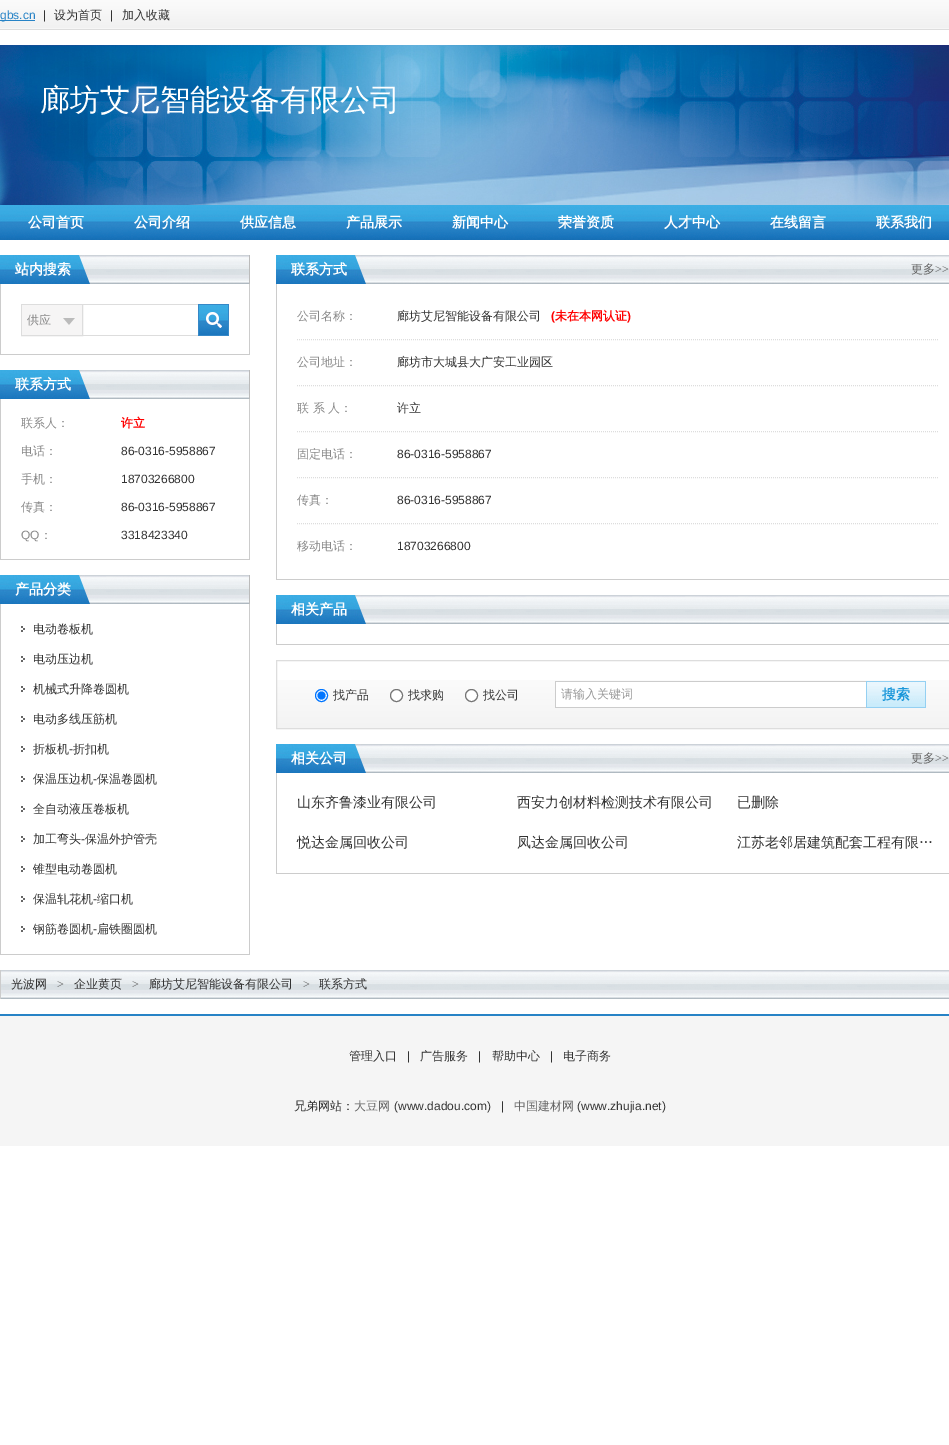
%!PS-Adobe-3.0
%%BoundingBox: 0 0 949 1445
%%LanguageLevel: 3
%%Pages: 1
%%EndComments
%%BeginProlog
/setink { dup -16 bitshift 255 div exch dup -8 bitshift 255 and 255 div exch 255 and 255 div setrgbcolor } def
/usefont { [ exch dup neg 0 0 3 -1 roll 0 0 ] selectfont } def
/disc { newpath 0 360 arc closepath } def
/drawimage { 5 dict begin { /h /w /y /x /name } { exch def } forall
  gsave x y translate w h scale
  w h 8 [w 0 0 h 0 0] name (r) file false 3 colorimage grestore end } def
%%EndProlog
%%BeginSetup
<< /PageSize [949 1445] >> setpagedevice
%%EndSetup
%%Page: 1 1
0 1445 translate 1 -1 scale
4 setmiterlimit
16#FFFFFF setink
0 0 949 1445 rectfill
(img1.raw) 0 0 949 30 drawimage
16#2783C6 setink
0 20 35 1 rectfill
/LiberationSans-Regular 12 usefont
0 19 moveto (gbs.cn) show
16#333333 setink
43 19 moveto (|) show
/WenQuanYiZenHei-Medium 12 usefont
54 19 moveto (设为首页) show
/LiberationSans-Regular 12 usefont
110 19 moveto (|) show
/WenQuanYiZenHei-Medium 12 usefont
122 19 moveto (加入收藏) show
(img2.raw) 0 45 949 160 drawimage
/WenQuanYiZenHei-Medium 30 usefont
16#FFFFFF setink
40 110 moveto (廊坊艾尼智能设备有限公司) show
(img3.raw) 0 205 949 35 drawimage
/WenQuanYiZenHei-Bold 14 usefont
[
    [(公司首页) 28 227]
    [(公司介绍) 134 227]
    [(供应信息) 240 227]
    [(产品展示) 346 227]
    [(新闻中心) 452 227]
    [(荣誉资质) 558 227]
    [(人才中心) 664 227]
    [(在线留言) 770 227]
    [(联系我们) 876 227]
] { aload pop moveto show } forall
(img4.raw) 90 255 159 29 drawimage
16#BBBBBB setink
249 255 1 29 rectfill
(img5.raw) 0 255 90 29 drawimage
16#FFFFFF setink
15 274 moveto (站内搜索) show
[
    [249 284 1 71 16#CCCCCC]
    [0 354 250 1 16#CCCCCC]
    [0 284 1 71 16#CCCCCC]
] { aload pop setink rectfill } forall
16#DDDDDD setink
21.5 304.5 61 31 rectstroke
(img6.raw) 22 305 60 30 drawimage
/WenQuanYiZenHei-Medium 12 usefont
16#888888 setink
27 324 moveto (供应) show
16#DDDDDD setink
83 304 115 1 rectfill
83 335 115 1 rectfill
(img7.raw) 198 304 31 32 drawimage
(img4.raw) 90 370 159 29 drawimage
16#BBBBBB setink
249 370 1 29 rectfill
(img5.raw) 0 370 90 29 drawimage
/WenQuanYiZenHei-Bold 14 usefont
16#FFFFFF setink
15 389 moveto (联系方式) show
[
    [249 399 1 161 16#CCCCCC]
    [0 559 250 1 16#CCCCCC]
    [0 399 1 161 16#CCCCCC]
] { aload pop setink rectfill } forall
/WenQuanYiZenHei-Medium 12 usefont
16#888888 setink
21 427 moveto (联系人：) show
/WenQuanYiZenHei-Bold 12 usefont
16#FF0000 setink
121 427 moveto (许立) show
/WenQuanYiZenHei-Medium 12 usefont
16#888888 setink
21 455 moveto (电话：) show
/LiberationSans-Regular 12 usefont
16#333333 setink
121 455 moveto (86-0316-5958867) show
/WenQuanYiZenHei-Medium 12 usefont
16#888888 setink
21 483 moveto (手机：) show
/LiberationSans-Regular 12 usefont
16#333333 setink
121 483 moveto (18703266800) show
/WenQuanYiZenHei-Medium 12 usefont
16#888888 setink
21 511 moveto (传真：) show
/LiberationSans-Regular 12 usefont
16#333333 setink
121 511 moveto (86-0316-5958867) show
16#888888 setink
21 539 moveto (QQ) show
/WenQuanYiZenHei-Medium 12 usefont
40 539 moveto (：) show
/LiberationSans-Regular 12 usefont
16#333333 setink
121 539 moveto (3318423340) show
(img4.raw) 90 575 159 29 drawimage
16#BBBBBB setink
249 575 1 29 rectfill
(img5.raw) 0 575 90 29 drawimage
/WenQuanYiZenHei-Bold 14 usefont
16#FFFFFF setink
15 594 moveto (产品分类) show
[
    [249 604 1 351 16#CCCCCC]
    [0 954 250 1 16#CCCCCC]
    [0 604 1 351 16#CCCCCC]
] { aload pop setink rectfill } forall
(img8.raw) 21 626 4 6 drawimage
/WenQuanYiZenHei-Medium 12 usefont
16#333333 setink
33 633 moveto (电动卷板机) show
(img8.raw) 21 656 4 6 drawimage
33 663 moveto (电动压边机) show
(img8.raw) 21 686 4 6 drawimage
33 693 moveto (机械式升降卷圆机) show
(img8.raw) 21 716 4 6 drawimage
33 723 moveto (电动多线压筋机) show
(img8.raw) 21 746 4 6 drawimage
33 753 moveto (折板机) show
/LiberationSans-Regular 12 usefont
69 753 moveto (-) show
/WenQuanYiZenHei-Medium 12 usefont
73 753 moveto (折扣机) show
(img8.raw) 21 776 4 6 drawimage
33 783 moveto (保温压边机) show
/LiberationSans-Regular 12 usefont
93 783 moveto (-) show
/WenQuanYiZenHei-Medium 12 usefont
97 783 moveto (保温卷圆机) show
(img8.raw) 21 806 4 6 drawimage
33 813 moveto (全自动液压卷板机) show
(img8.raw) 21 836 4 6 drawimage
33 843 moveto (加工弯头) show
/LiberationSans-Regular 12 usefont
81 843 moveto (-) show
/WenQuanYiZenHei-Medium 12 usefont
85 843 moveto (保温外护管壳) show
(img8.raw) 21 866 4 6 drawimage
33 873 moveto (锥型电动卷圆机) show
(img8.raw) 21 896 4 6 drawimage
33 903 moveto (保温轧花机) show
/LiberationSans-Regular 12 usefont
93 903 moveto (-) show
/WenQuanYiZenHei-Medium 12 usefont
97 903 moveto (缩口机) show
(img8.raw) 21 926 4 6 drawimage
33 933 moveto (钢筋卷圆机) show
/LiberationSans-Regular 12 usefont
93 933 moveto (-) show
/WenQuanYiZenHei-Medium 12 usefont
97 933 moveto (扁铁圈圆机) show
(img9.raw) 366 255 583 29 drawimage
(img5.raw) 276 255 90 29 drawimage
/WenQuanYiZenHei-Bold 14 usefont
16#FFFFFF setink
291 274 moveto (联系方式) show
/WenQuanYiZenHei-Medium 12 usefont
16#666666 setink
911 273 moveto (更多) show
/LiberationSerif-Regular 12 usefont
935 273 moveto (>>) show
16#CCCCCC setink
276 579 673 1 rectfill
276 284 1 296 rectfill
16#DDDDDD setink
[1 1] 0 setdash
297 339.5 moveto 939 339.5 lineto stroke
/WenQuanYiZenHei-Medium 12 usefont
16#888888 setink
297 320 moveto (公司名称：) show
16#333333 setink
397 320 moveto (廊坊艾尼智能设备有限公司) show
/LiberationSans-Bold 12 usefont
16#FF0000 setink
551 320 moveto (\() show
/WenQuanYiZenHei-Bold 12 usefont
555 320 moveto (未在本网认证) show
/LiberationSans-Bold 12 usefont
627 320 moveto (\)) show
16#DDDDDD setink
297 385.5 moveto 939 385.5 lineto stroke
/WenQuanYiZenHei-Medium 12 usefont
16#888888 setink
297 366 moveto (公司地址：) show
16#333333 setink
397 366 moveto (廊坊市大城县大广安工业园区) show
16#DDDDDD setink
297 431.5 moveto 939 431.5 lineto stroke
16#888888 setink
297 412 moveto (联 系 人：) show
16#333333 setink
397 412 moveto (许立) show
16#DDDDDD setink
297 477.5 moveto 939 477.5 lineto stroke
16#888888 setink
297 458 moveto (固定电话：) show
/LiberationSans-Regular 12 usefont
16#333333 setink
397 458 moveto (86-0316-5958867) show
16#DDDDDD setink
297 523.5 moveto 939 523.5 lineto stroke
/WenQuanYiZenHei-Medium 12 usefont
16#888888 setink
297 504 moveto (传真：) show
/LiberationSans-Regular 12 usefont
16#333333 setink
397 504 moveto (86-0316-5958867) show
/WenQuanYiZenHei-Medium 12 usefont
16#888888 setink
297 550 moveto (移动电话：) show
/LiberationSans-Regular 12 usefont
16#333333 setink
397 550 moveto (18703266800) show
(img9.raw) 366 595 583 29 drawimage
(img5.raw) 276 595 90 29 drawimage
/WenQuanYiZenHei-Bold 14 usefont
16#FFFFFF setink
291 614 moveto (相关产品) show
16#CCCCCC setink
276 644 673 1 rectfill
276 624 1 21 rectfill
(img10.raw) 277 680 672 48 drawimage
16#DDDDDD setink
[] 0 setdash
276.5 660.5 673 68 rectstroke
16#FFFFFF setink
321.5 695.5 6 disc gsave fill grestore
16#0075FF setink
stroke
321.5 695.5 4 disc fill
/WenQuanYiZenHei-Medium 12 usefont
16#333333 setink
333 699 moveto (找产品) show
16#FFFFFF setink
396.5 695.5 6 disc gsave fill grestore
16#767676 setink
stroke
16#333333 setink
408 699 moveto (找求购) show
16#FFFFFF setink
471.5 695.5 6 disc gsave fill grestore
16#767676 setink
stroke
16#333333 setink
483 699 moveto (找公司) show
[
    [556 682 310 25 16#FFFFFF]
    [555 681 311 1 16#CCCCCC]
    [555 707 311 1 16#CCCCCC]
    [555 681 1 27 16#CCCCCC]
] { aload pop setink rectfill } forall
16#999999 setink
561 698 moveto (请输入关键词) show
(img11.raw) 866 681 60 27 drawimage
/WenQuanYiZenHei-Bold 14 usefont
16#1A97DA setink
882 699 moveto (搜索) show
(img9.raw) 366 744 583 29 drawimage
(img5.raw) 276 744 90 29 drawimage
16#FFFFFF setink
291 763 moveto (相关公司) show
/WenQuanYiZenHei-Medium 12 usefont
16#666666 setink
911 762 moveto (更多) show
/LiberationSerif-Regular 12 usefont
935 762 moveto (>>) show
16#CCCCCC setink
276 873 673 1 rectfill
276 773 1 101 rectfill
/WenQuanYiZenHei-Medium 14 usefont
16#333333 setink
[
    [(山东齐鲁漆业有限公司) 297 807]
    [(西安力创材料检测技术有限公司) 517 807]
    [(已删除) 737 807]
    [(悦达金属回收公司) 297 847]
    [(凤达金属回收公司) 517 847]
    [(江苏老邻居建筑配套工程有限…) 737 847]
] { aload pop moveto show } forall
(img12.raw) 1 970 948 29 drawimage
16#CCCCCC setink
0 970 1 29 rectfill
/WenQuanYiZenHei-Medium 12 usefont
16#333333 setink
11 988 moveto (光波网) show
/LiberationSerif-Regular 12 usefont
16#666666 setink
57 988 moveto (>) show
/WenQuanYiZenHei-Medium 12 usefont
16#333333 setink
74 988 moveto (企业黄页) show
/LiberationSerif-Regular 12 usefont
16#666666 setink
132 988 moveto (>) show
/WenQuanYiZenHei-Medium 12 usefont
16#333333 setink
149 988 moveto (廊坊艾尼智能设备有限公司) show
/LiberationSerif-Regular 12 usefont
16#666666 setink
303 988 moveto (>) show
/WenQuanYiZenHei-Medium 12 usefont
16#333333 setink
319 988 moveto (联系方式) show
16#F5F5F5 setink
0 1016 949 130 rectfill
16#2783C6 setink
0 1014 949 2 rectfill
16#333333 setink
349 1060 moveto (管理入口) show
/LiberationSans-Regular 12 usefont
407 1060 moveto (|) show
/WenQuanYiZenHei-Medium 12 usefont
420 1060 moveto (广告服务) show
/LiberationSans-Regular 12 usefont
478 1060 moveto (|) show
/WenQuanYiZenHei-Medium 12 usefont
492 1060 moveto (帮助中心) show
/LiberationSans-Regular 12 usefont
550 1060 moveto (|) show
/WenQuanYiZenHei-Medium 12 usefont
563 1060 moveto (电子商务) show
294 1110 moveto (兄弟网站：) show
16#666666 setink
354 1110 moveto (大豆网) show
/LiberationSans-Regular 12 usefont
16#333333 setink
394 1110 moveto (\(www.dadou.com\)   |) show
/WenQuanYiZenHei-Medium 12 usefont
16#666666 setink
514 1110 moveto (中国建材网) show
/LiberationSans-Regular 12 usefont
16#333333 setink
577 1110 moveto (\(www.zhujia.net\)) show
showpage
%%EOF
